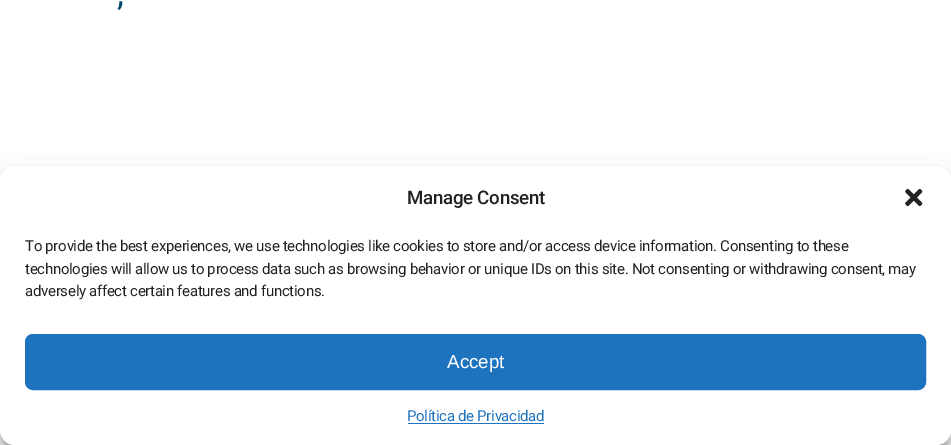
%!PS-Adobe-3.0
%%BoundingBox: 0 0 951 445
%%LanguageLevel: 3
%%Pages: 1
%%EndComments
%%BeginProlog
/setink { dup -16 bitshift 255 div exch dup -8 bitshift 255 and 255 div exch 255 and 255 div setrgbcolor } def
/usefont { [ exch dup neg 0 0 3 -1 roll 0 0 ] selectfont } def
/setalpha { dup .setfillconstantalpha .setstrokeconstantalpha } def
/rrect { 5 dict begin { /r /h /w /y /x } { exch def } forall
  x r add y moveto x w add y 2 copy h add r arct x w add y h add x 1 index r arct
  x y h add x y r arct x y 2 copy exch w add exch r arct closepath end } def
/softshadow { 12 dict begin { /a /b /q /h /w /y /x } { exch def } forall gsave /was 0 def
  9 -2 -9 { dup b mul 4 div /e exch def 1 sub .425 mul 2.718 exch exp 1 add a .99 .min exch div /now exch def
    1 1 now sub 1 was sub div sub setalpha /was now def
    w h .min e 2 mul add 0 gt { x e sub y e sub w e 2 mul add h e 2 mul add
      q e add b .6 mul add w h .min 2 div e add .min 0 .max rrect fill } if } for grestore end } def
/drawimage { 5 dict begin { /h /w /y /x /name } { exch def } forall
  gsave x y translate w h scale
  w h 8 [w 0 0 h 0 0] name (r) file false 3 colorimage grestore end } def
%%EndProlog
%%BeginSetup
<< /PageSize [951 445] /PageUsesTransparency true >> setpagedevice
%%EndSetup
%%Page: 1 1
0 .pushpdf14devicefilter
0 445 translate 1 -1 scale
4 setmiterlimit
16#FFFFFF setink
0 0 951 445 rectfill
/Roboto-Regular 35 usefont
16#004B6C setink
117 5 moveto -1 0 (,) ashow
16#000000 setink
0 174 951 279 15 4 0.23 softshadow
0 179 951 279 15 12.5 0.19 softshadow
16#808080 setink
864 353 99 75 2.5 3 1 softshadow
16#FFFFFF setink
0 166 951 279 15 rrect fill
/Roboto-Medium 18.75 usefont
16#222222 setink
407 204 moveto -0.3 0 (Manage Consent) ashow
(img1.raw) 905 188 18 19 drawimage
/Roboto-Regular 15 usefont
25 251 moveto -0.3 0 (To provide the best experiences, we use technologies like cookies to store and/or access device information. Consenting to these) ashow
25 274 moveto -0.3 0 (technologies will allow us to process data such as browsing behavior or unique IDs on this site. Not consenting or withdrawing consent, may) ashow
25 296 moveto -0.3 0 (adversely affect certain features and functions.) ashow
16#1E73BE setink
25.5 334.5 900 55 7.5 rrect gsave fill grestore
stroke
/LiberationSans-Regular 18.75 usefont
16#FFFFFF setink
447 368 moveto (Accept) show
/Roboto-Regular 15 usefont
16#1E73BE setink
407 421 moveto -0.3 0 (Política de Privacidad) ashow
408 423 136 1 rectfill
.poppdf14devicefilter showpage
%%EOF
